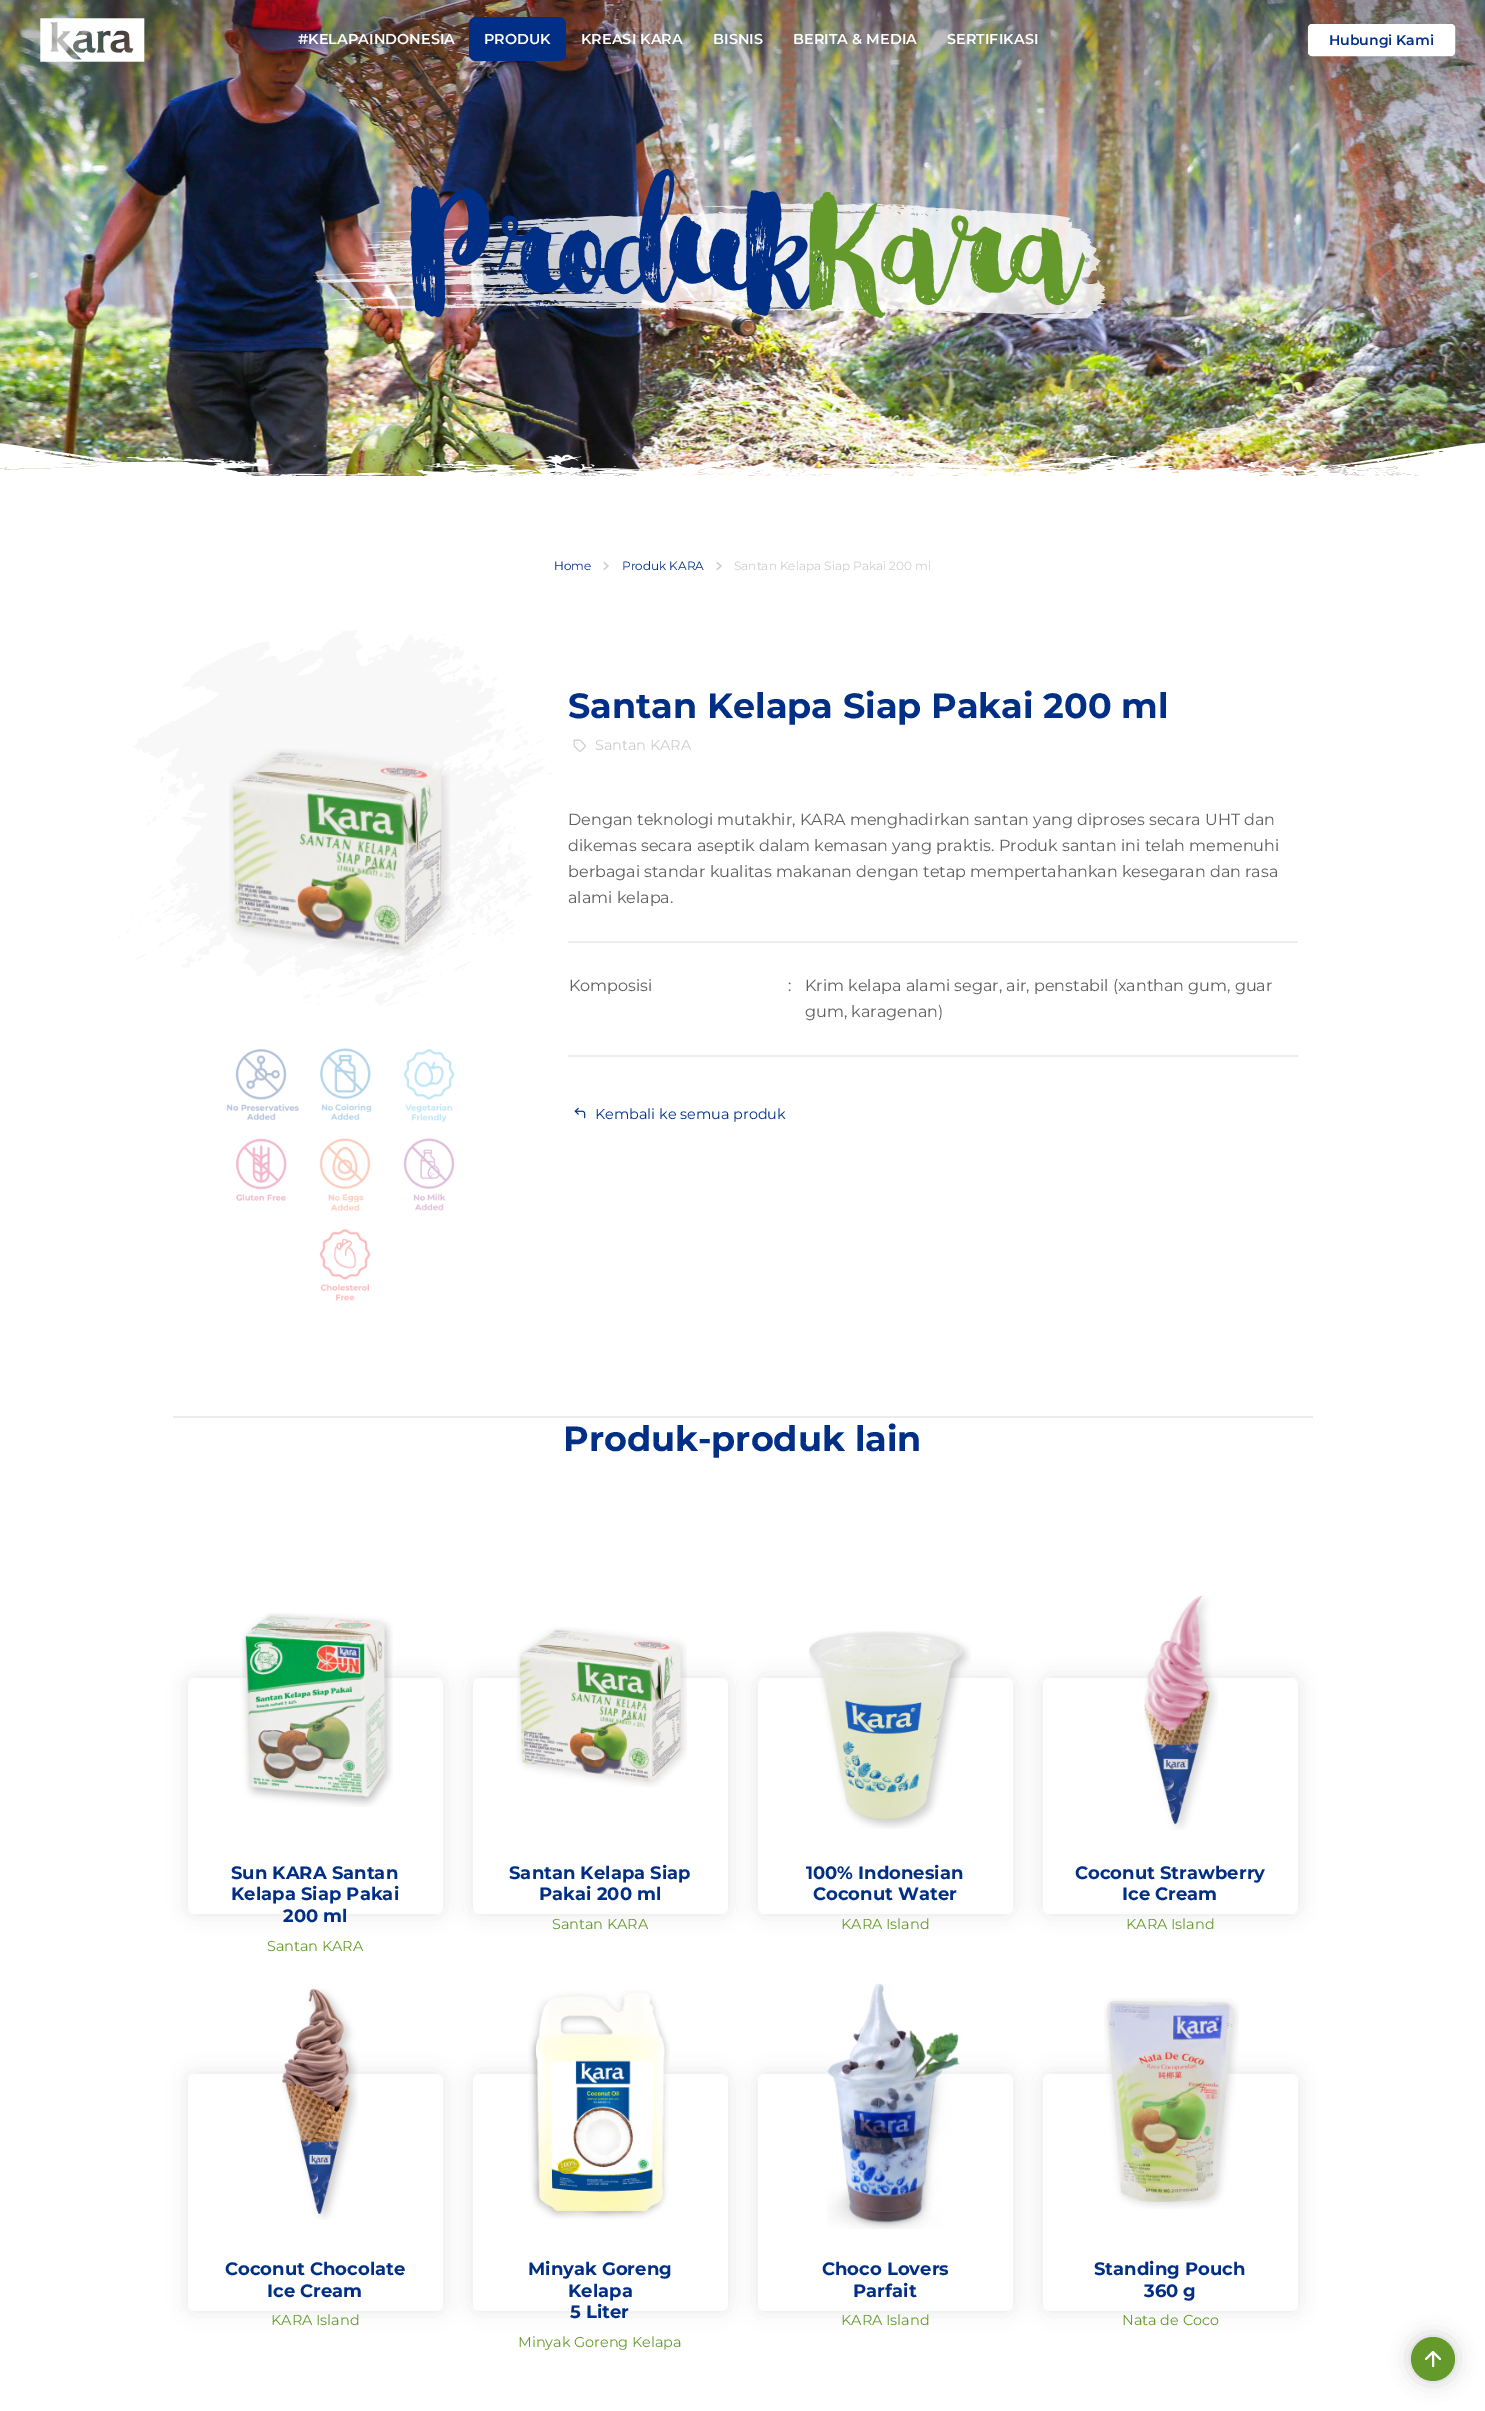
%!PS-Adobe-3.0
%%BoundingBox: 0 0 1485 2411
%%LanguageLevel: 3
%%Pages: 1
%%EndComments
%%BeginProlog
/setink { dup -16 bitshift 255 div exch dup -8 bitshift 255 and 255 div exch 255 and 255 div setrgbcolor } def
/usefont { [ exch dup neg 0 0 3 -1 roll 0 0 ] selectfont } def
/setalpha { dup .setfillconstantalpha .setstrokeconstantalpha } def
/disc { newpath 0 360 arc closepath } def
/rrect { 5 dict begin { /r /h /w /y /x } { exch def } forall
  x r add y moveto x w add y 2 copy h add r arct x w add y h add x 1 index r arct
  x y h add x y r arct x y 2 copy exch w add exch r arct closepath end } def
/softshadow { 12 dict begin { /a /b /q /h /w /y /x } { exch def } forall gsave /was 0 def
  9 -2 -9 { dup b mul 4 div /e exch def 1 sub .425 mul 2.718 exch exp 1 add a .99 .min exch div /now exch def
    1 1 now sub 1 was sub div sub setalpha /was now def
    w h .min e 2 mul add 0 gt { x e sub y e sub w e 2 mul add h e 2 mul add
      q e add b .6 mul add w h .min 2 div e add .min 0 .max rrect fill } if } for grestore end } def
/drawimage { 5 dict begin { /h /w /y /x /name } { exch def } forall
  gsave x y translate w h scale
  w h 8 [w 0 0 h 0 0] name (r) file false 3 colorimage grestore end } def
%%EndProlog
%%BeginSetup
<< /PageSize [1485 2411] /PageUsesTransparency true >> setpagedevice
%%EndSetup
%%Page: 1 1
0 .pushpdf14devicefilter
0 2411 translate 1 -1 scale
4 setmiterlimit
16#FFFFFF setink
0 0 1485 2411 rectfill
(img3.raw) 0 0 1485 476 drawimage
(img1.raw) 0 0 1485 155 drawimage
(img2.raw) 40 18 105 44 drawimage
/Montserrat-SemiBold 14.4 usefont
298 44 moveto (#KELAPAINDONESIA) show
16#002F85 setink
469 17 97 44 7 rrect fill
16#FFFFFF setink
[
    [(PRODUK) 484 44]
    [(KREASI KARA) 581 44]
    [(BISNIS) 713 44]
    [(BERITA & MEDIA) 793 44]
    [(SERTIFIKASI) 947 44]
] { aload pop moveto show } forall
1308.5 24.5 146 31 3.5 rrect gsave fill grestore
stroke
/Montserrat-SemiBold 14 usefont
16#002F85 setink
1329 45 moveto (Hubungi Kami) show
(img4.raw) 313 201 793 118 drawimage
/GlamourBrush-Regular 140 usefont
412 295 moveto (Produk) show
16#639A2B setink
810 295 moveto (Kara) show
(img5.raw) 0 442 1485 34 drawimage
16#ECECEC setink
173 1416 1140 2 rectfill
/Montserrat-Regular 12 usefont
16#002F85 setink
554 570 moveto (Home) show
16#CCCCCC setink
1.2 setlinewidth
1 setlinecap
1 setlinejoin
604 569.5 moveto 608 566 lineto 604 562.5 lineto stroke
16#002F85 setink
622 570 moveto (Produk KARA) show
16#CCCCCC setink
717 569.5 moveto 721 566 lineto 717 562.5 lineto stroke
734 570 moveto (Santan Kelapa Siap Pakai 200 ml) show
(img6.raw) 118 630 435 376 drawimage
(img7.raw) 229 749 221 207 drawimage
(img8.raw) 226 1049 73 71 drawimage
(img9.raw) 320 1048 52 72 drawimage
(img10.raw) 403 1049 52 73 drawimage
(img11.raw) 236 1138 51 63 drawimage
(img12.raw) 319 1138 52 73 drawimage
(img13.raw) 403 1138 52 73 drawimage
(img14.raw) 319 1229 52 72 drawimage
/Montserrat-Bold 35 usefont
16#002F85 setink
568 718 moveto (Santan Kelapa Siap Pakai 200 ml) show
(img15.raw) 573 739 13 13 drawimage
/Montserrat-Regular 14.4 usefont
16#CCCCCC setink
595 750 moveto (Santan KARA) show
/Montserrat-Regular 16 usefont
16#606060 setink
[
    [(Dengan teknologi mutakhir, KARA menghadirkan santan yang diproses secara UHT dan) 568 825]
    [(dikemas secara aseptik dalam kemasan yang praktis. Produk santan ini telah memenuhi) 568 851]
    [(berbagai standar kualitas makanan dengan tetap mempertahankan kesegaran dan rasa) 568 877]
    [(alami kelapa.) 568 903]
] { aload pop moveto show } forall
16#ECECEC setink
568 941 730 2 rectfill
568 1055 730 2 rectfill
16#606060 setink
[
    [(Komposisi) 569 991]
    [(:) 788 991]
    [(Krim kelapa alami segar, air, penstabil \(xanthan gum, guar) 805 991]
    [(gum, karagenan\)) 805 1017]
] { aload pop moveto show } forall
(img16.raw) 574 1107 12 12 drawimage
/Montserrat-Regular 14.4 usefont
16#002F85 setink
595 1119 moveto (Kembali ke semua produk) show
/Montserrat-Bold 35 usefont
563 1451 moveto (Produk-produk lain) show
16#000000 setink
188 1678 255 236 7 10 0.1 softshadow
16#FFFFFF setink
188 1678 255 236 7 rrect fill
(img17.raw) 242 1613 151 194 drawimage
/Montserrat-Bold 18 usefont
16#002F85 setink
[
    [(Sun KARA Santan) 231 1879]
    [(Kelapa Siap Pakai) 231 1900]
    [(200 ml) 283 1922]
] { aload pop moveto show } forall
/Montserrat-Regular 14.4 usefont
16#639A2B setink
267 1951 moveto (Santan KARA) show
16#000000 setink
473 1678 255 236 7 10 0.1 softshadow
16#FFFFFF setink
473 1678 255 236 7 rrect fill
(img18.raw) 517 1627 170 160 drawimage
/Montserrat-Bold 18 usefont
16#002F85 setink
509 1879 moveto (Santan Kelapa Siap) show
539 1900 moveto (Pakai 200 ml) show
/Montserrat-Regular 14.4 usefont
16#639A2B setink
552 1929 moveto (Santan KARA) show
16#000000 setink
758 1678 255 236 7 10 0.1 softshadow
16#FFFFFF setink
758 1678 255 236 7 rrect fill
(img19.raw) 809 1631 162 198 drawimage
/Montserrat-Bold 18 usefont
16#002F85 setink
806 1879 moveto (100% Indonesian) show
813 1900 moveto (Coconut Water) show
/Montserrat-Regular 14.4 usefont
16#639A2B setink
841 1929 moveto (KARA Island) show
16#000000 setink
1043 1678 255 236 7 10 0.1 softshadow
16#FFFFFF setink
1043 1678 255 236 7 rrect fill
(img20.raw) 1144 1595 74 235 drawimage
/Montserrat-Bold 18 usefont
16#002F85 setink
1075 1879 moveto (Coconut Strawberry) show
1122 1900 moveto (Ice Cream) show
/Montserrat-Regular 14.4 usefont
16#639A2B setink
1126 1929 moveto (KARA Island) show
16#000000 setink
188 2074 255 237 7 10 0.1 softshadow
16#FFFFFF setink
188 2074 255 237 7 rrect fill
(img21.raw) 281 1988 77 232 drawimage
/Montserrat-Bold 18 usefont
16#002F85 setink
225 2275 moveto (Coconut Chocolate) show
267 2297 moveto (Ice Cream) show
/Montserrat-Regular 14.4 usefont
16#639A2B setink
271 2325 moveto (KARA Island) show
16#000000 setink
473 2074 255 237 7 10 0.1 softshadow
16#FFFFFF setink
473 2074 255 237 7 rrect fill
(img22.raw) 528 1990 142 229 drawimage
/Montserrat-Bold 18 usefont
16#002F85 setink
[
    [(Minyak Goreng) 528 2275]
    [(Kelapa) 568 2297]
    [(5 Liter) 570 2318]
] { aload pop moveto show } forall
/Montserrat-Regular 14.4 usefont
16#639A2B setink
518 2347 moveto (Minyak Goreng Kelapa) show
16#000000 setink
758 2074 255 237 7 10 0.1 softshadow
16#FFFFFF setink
758 2074 255 237 7 rrect fill
(img23.raw) 827 1983 133 246 drawimage
/Montserrat-Bold 18 usefont
16#002F85 setink
822 2275 moveto (Choco Lovers) show
853 2297 moveto (Parfait) show
/Montserrat-Regular 14.4 usefont
16#639A2B setink
841 2325 moveto (KARA Island) show
16#000000 setink
1043 2074 255 237 7 10 0.1 softshadow
16#FFFFFF setink
1043 2074 255 237 7 rrect fill
(img24.raw) 1104 1998 135 211 drawimage
/Montserrat-Bold 18 usefont
16#002F85 setink
1094 2275 moveto (Standing Pouch) show
1144 2297 moveto (360 g) show
/Montserrat-Regular 14.4 usefont
16#639A2B setink
1122 2325 moveto (Nata de Coco) show
16#000000 setink
1411 2337 44 44 22 10 0.2 softshadow
16#639A2B setink
1433 2359 22 disc fill
16#FFFFFF setink
2 setlinewidth
1433 2366 moveto 1433 2352 lineto 1426 2359 moveto 1433 2352 lineto 1440 2359 lineto stroke
.poppdf14devicefilter showpage
%%EOF
